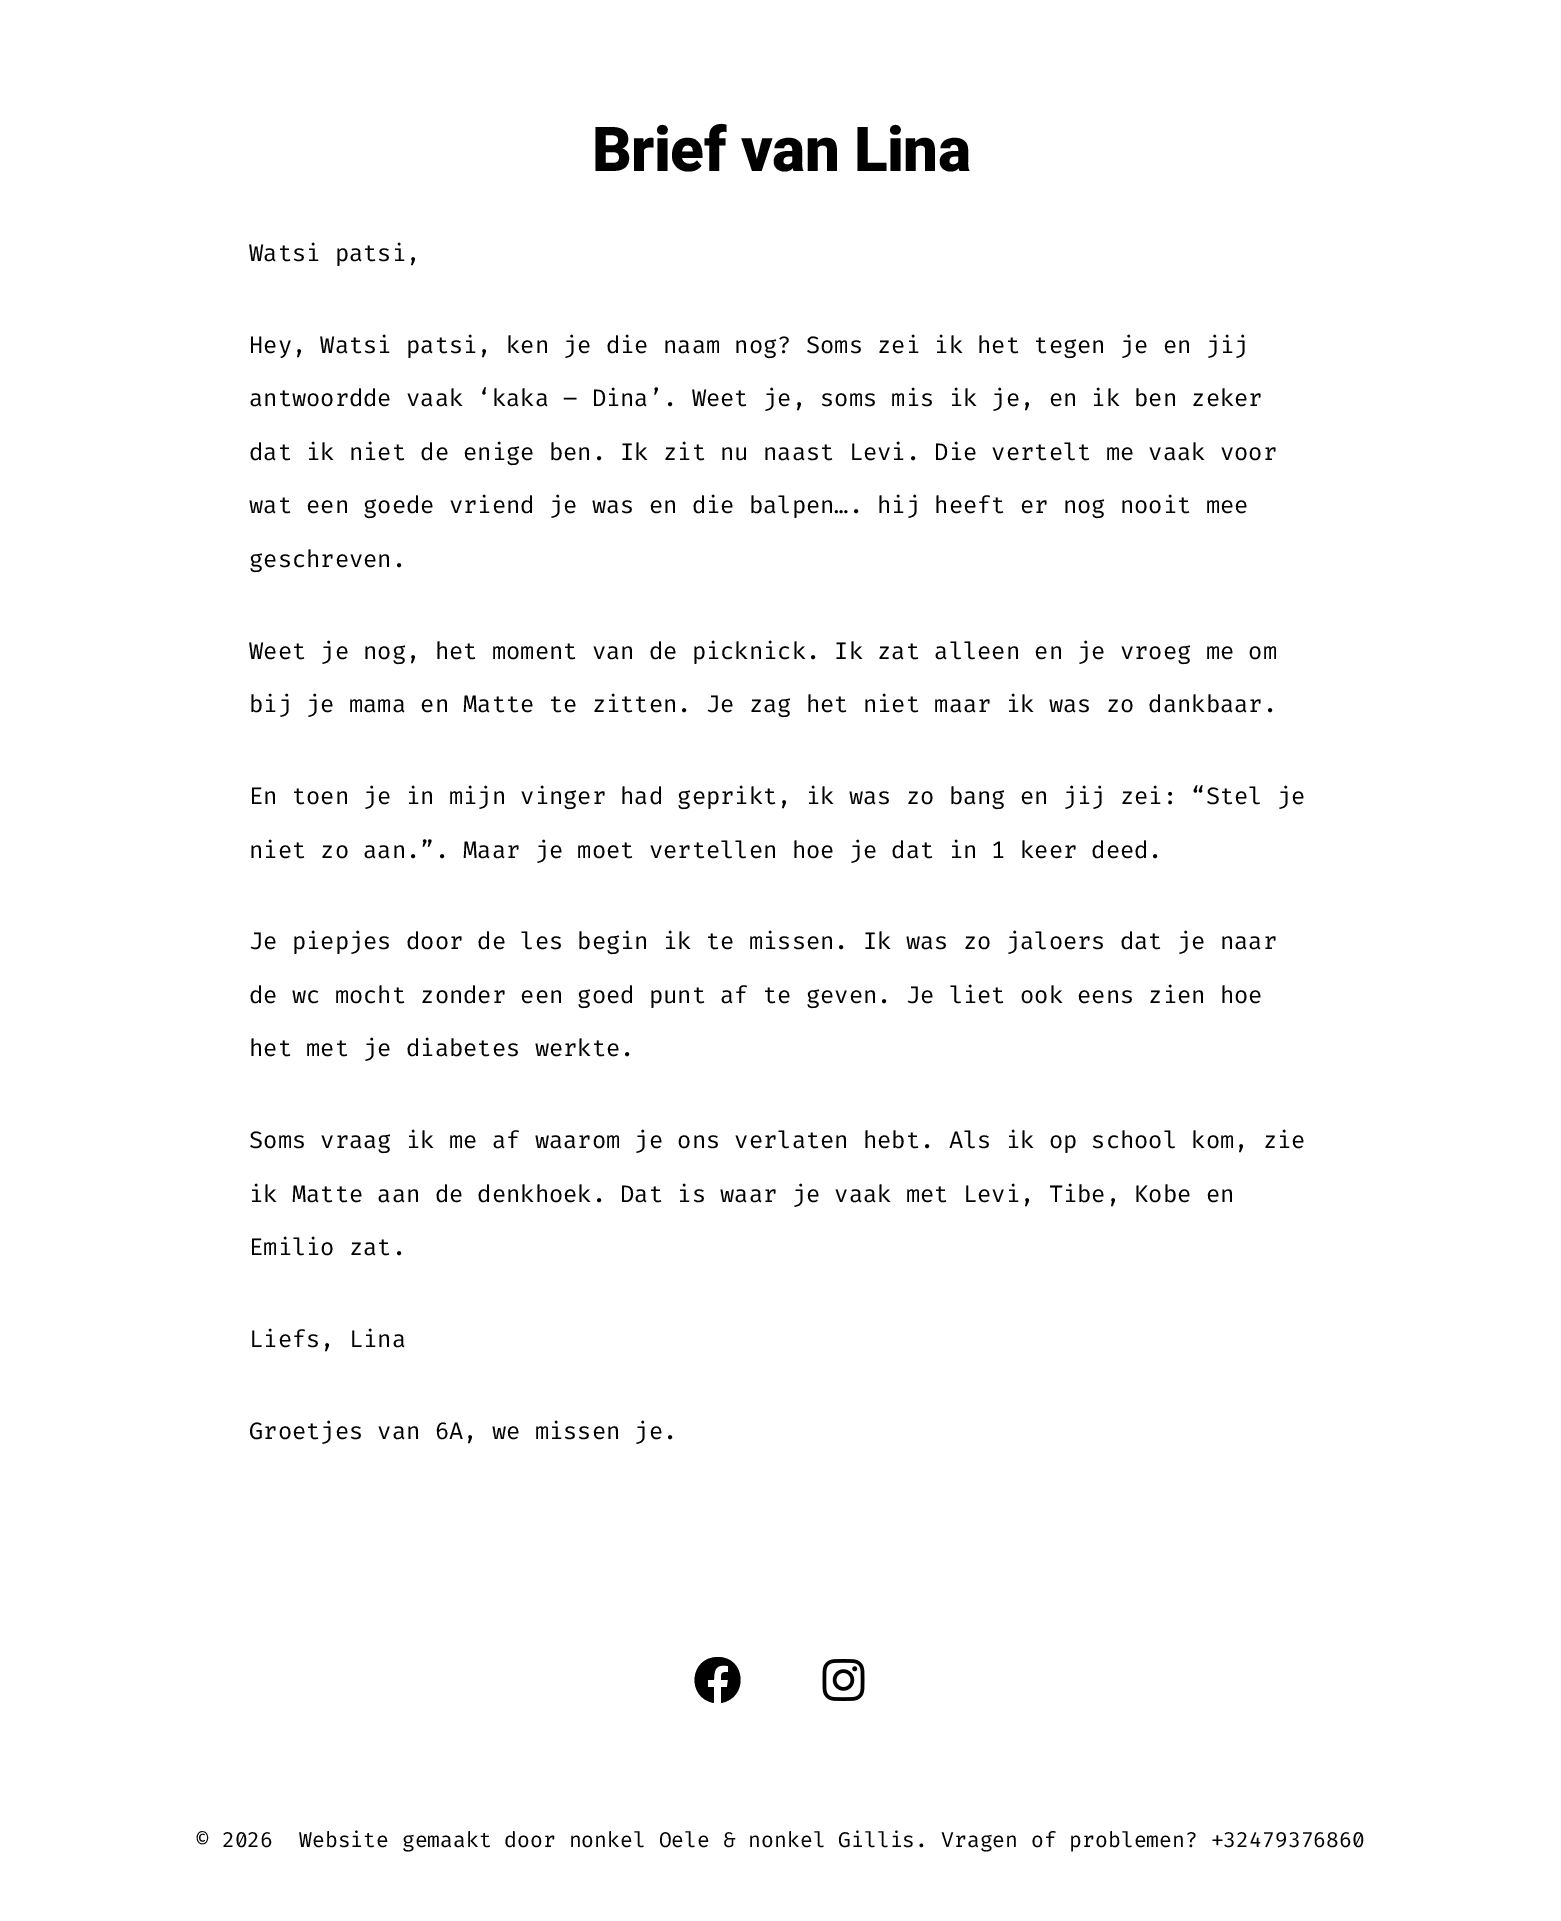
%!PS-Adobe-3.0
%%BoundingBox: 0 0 1561 1921
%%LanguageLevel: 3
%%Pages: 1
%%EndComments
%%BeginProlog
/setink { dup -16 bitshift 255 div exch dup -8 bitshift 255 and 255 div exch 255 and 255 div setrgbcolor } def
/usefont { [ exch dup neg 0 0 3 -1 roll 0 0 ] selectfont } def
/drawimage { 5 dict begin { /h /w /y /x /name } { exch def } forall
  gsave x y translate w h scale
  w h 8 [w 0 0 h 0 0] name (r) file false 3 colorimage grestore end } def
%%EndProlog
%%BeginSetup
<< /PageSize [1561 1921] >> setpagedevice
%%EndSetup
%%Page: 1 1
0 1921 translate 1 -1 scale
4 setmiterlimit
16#FFFFFF setink
0 0 1561 1921 rectfill
/Heebo-ExtraBold 62 usefont
16#000000 setink
592 171 moveto -0.5 0 (Brief van Lina) ashow
/FiraCode-Regular 23.8 usefont
[
    [(Watsi patsi,) 249 261]
    [(Hey, Watsi patsi, ken je die naam nog? Soms zei ik het tegen je en jij) 249 353]
    [(antwoordde vaak ‘kaka – Dina’. Weet je, soms mis ik je, en ik ben zeker) 249 406]
    [(dat ik niet de enige ben. Ik zit nu naast Levi. Die vertelt me vaak voor) 249 460]
    [(wat een goede vriend je was en die balpen…. hij heeft er nog nooit mee) 249 513]
    [(geschreven.) 249 567]
    [(Weet je nog, het moment van de picknick. Ik zat alleen en je vroeg me om) 249 659]
    [(bij je mama en Matte te zitten. Je zag het niet maar ik was zo dankbaar.) 249 712]
    [(En toen je in mijn vinger had geprikt, ik was zo bang en jij zei: “Stel je) 249 804]
    [(niet zo aan.”. Maar je moet vertellen hoe je dat in 1 keer deed.) 249 858]
    [(Je piepjes door de les begin ik te missen. Ik was zo jaloers dat je naar) 249 949]
    [(de wc mocht zonder een goed punt af te geven. Je liet ook eens zien hoe) 249 1003]
    [(het met je diabetes werkte.) 249 1056]
    [(Soms vraag ik me af waarom je ons verlaten hebt. Als ik op school kom, zie) 249 1148]
    [(ik Matte aan de denkhoek. Dat is waar je vaak met Levi, Tibe, Kobe en) 249 1202]
    [(Emilio zat.) 249 1255]
    [(Liefs, Lina) 249 1347]
    [(Groetjes van 6A, we missen je.) 249 1439]
] { aload pop moveto show } forall
718 1657 moveto 689 1657 686 1698 714 1703 curveto 714 1687 lineto 708 1687 lineto 708 1680 lineto 714 1680 lineto 714 1669 716 1664 728 1666 curveto 728 1672 lineto 721 1672 721 1673 721 1680 curveto 728 1680 lineto 727 1687 lineto 721 1687 lineto 721 1703 lineto 749 1698 746 1657 718 1657 curveto closepath fill
(img1.raw) 822 1659 43 42 drawimage
/FiraCode-Regular 21.4 usefont
196 1847 moveto (© 2026) show
299 1847 moveto (Website gemaakt door nonkel Oele & nonkel Gillis. Vragen of problemen? +32479376860) show
showpage
%%EOF
